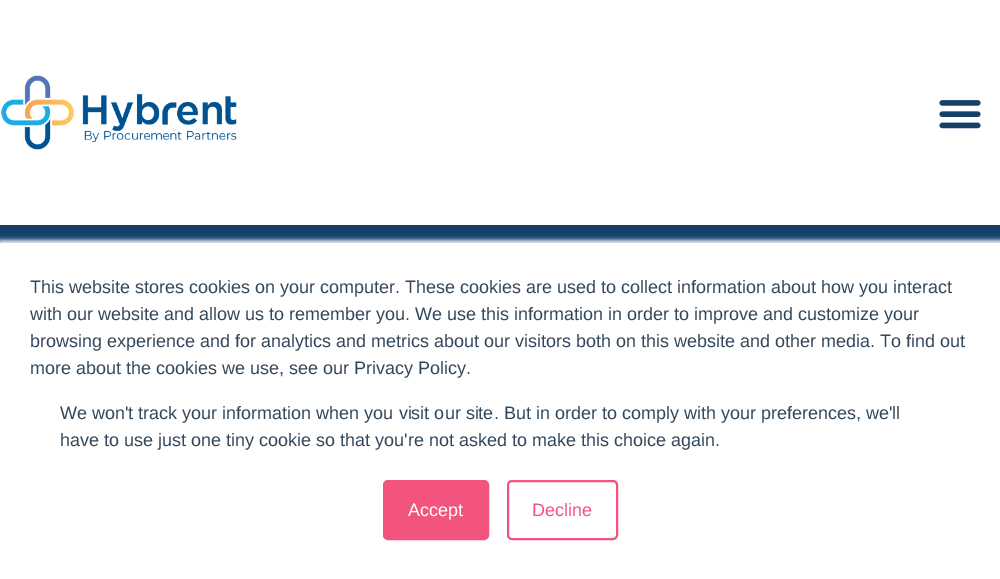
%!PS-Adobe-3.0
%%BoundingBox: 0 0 1000 579
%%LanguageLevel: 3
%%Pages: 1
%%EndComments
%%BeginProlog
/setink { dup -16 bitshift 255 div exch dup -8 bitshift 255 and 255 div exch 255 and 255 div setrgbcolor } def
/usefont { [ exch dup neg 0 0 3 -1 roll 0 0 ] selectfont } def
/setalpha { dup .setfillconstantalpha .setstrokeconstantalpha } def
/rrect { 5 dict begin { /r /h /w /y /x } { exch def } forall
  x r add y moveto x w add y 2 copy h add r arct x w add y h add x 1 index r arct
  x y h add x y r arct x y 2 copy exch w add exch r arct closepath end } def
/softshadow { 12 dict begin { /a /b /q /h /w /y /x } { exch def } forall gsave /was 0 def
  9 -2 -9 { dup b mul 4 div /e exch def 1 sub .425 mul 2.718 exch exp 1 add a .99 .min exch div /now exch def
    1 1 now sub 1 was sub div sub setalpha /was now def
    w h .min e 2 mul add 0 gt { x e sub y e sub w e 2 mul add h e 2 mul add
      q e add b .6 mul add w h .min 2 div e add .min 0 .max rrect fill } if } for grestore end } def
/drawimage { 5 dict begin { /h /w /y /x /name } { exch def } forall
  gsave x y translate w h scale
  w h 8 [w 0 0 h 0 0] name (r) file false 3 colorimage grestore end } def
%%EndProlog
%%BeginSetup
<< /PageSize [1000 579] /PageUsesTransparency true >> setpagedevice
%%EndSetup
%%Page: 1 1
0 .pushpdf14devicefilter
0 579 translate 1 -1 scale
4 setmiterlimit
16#FFFFFF setink
0 0 1000 579 rectfill
(img1.raw) 1 75 236 75 drawimage
(img2.raw) 939 100 42 29 drawimage
gsave 0 225 moveto 1000 225 lineto 1000 242 lineto 0 242 lineto closepath clip newpath
<< /ShadingType 2 /ColorSpace /DeviceRGB /Coords [500 225 500 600] /Extend [true true] /Function << /FunctionType 2 /Domain [0 1] /C0 [0.086 0.251 0.408] /C1 [0.18 0.467 0.812] /N 1 >> >> shfill grestore
16#EAF0F6 setink
0 240 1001 338 0 2 1 softshadow
16#CBD6E2 setink
0 242 1000 1 rectfill
16#FFFFFF setink
0 243 1000 336 rectfill
/LiberationSans-Regular 18 usefont
16#33475B setink
[
    [(This website stores cookies on your computer. These cookies are used to collect information about how you interact) 30 293]
    [(with our website and allow us to remember you. We use this information in order to improve and customize your) 30 320]
    [(browsing experience and for analytics and metrics about our visitors both on this website and other media. To find out) 30 347]
    [(more about the cookies we use, see our Privacy Policy.) 30 374]
    [(We won't track your information when you visit our site. But in order to comply with your preferences, we'll) 60 419]
    [(have to use just one tiny cookie so that you're not asked to make this choice again.) 60 446]
] { aload pop moveto show } forall
16#F2547D setink
384 481 104 58 4 rrect gsave fill grestore
2 setlinewidth
stroke
16#FFFFFF setink
408 516 moveto (Accept) show
16#F2547D setink
508 481 109 58 4 rrect stroke
532 516 moveto (Decline) show
.poppdf14devicefilter showpage
%%EOF
